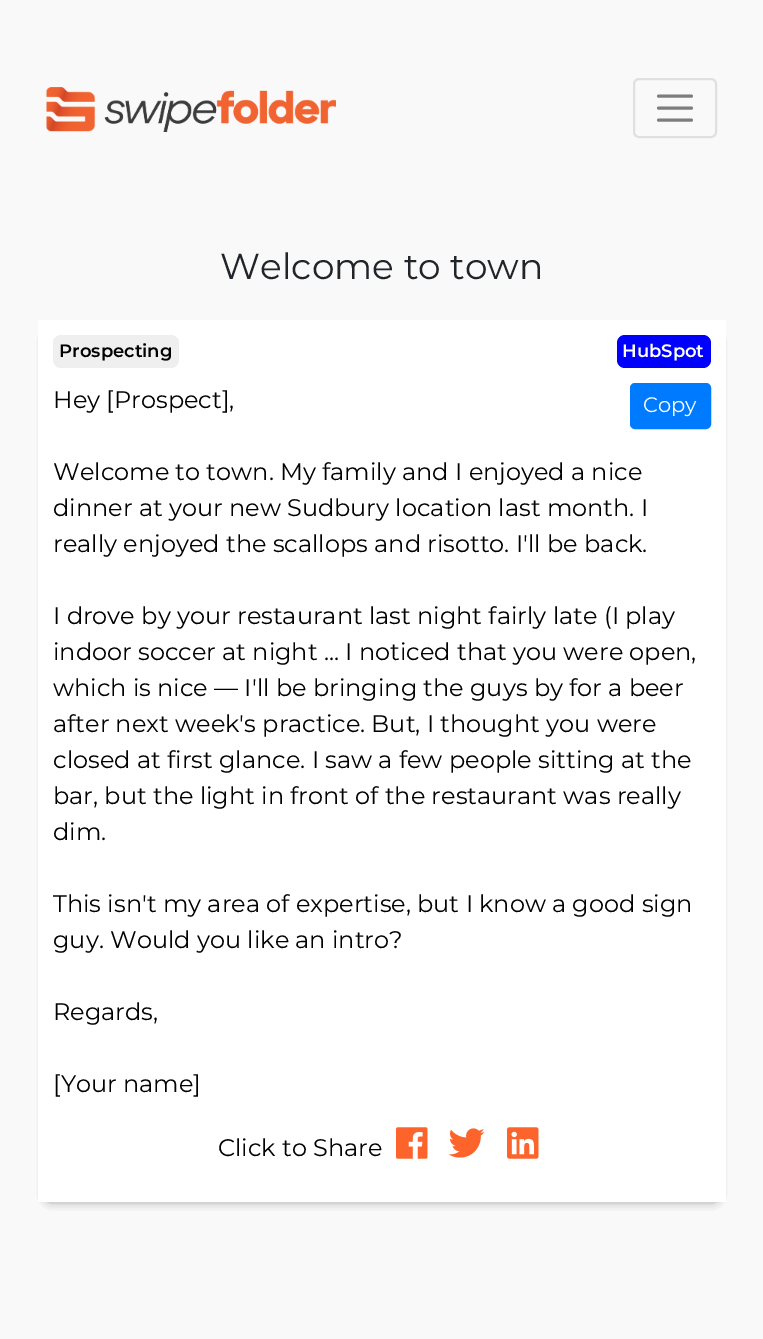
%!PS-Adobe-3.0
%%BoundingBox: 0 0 763 1339
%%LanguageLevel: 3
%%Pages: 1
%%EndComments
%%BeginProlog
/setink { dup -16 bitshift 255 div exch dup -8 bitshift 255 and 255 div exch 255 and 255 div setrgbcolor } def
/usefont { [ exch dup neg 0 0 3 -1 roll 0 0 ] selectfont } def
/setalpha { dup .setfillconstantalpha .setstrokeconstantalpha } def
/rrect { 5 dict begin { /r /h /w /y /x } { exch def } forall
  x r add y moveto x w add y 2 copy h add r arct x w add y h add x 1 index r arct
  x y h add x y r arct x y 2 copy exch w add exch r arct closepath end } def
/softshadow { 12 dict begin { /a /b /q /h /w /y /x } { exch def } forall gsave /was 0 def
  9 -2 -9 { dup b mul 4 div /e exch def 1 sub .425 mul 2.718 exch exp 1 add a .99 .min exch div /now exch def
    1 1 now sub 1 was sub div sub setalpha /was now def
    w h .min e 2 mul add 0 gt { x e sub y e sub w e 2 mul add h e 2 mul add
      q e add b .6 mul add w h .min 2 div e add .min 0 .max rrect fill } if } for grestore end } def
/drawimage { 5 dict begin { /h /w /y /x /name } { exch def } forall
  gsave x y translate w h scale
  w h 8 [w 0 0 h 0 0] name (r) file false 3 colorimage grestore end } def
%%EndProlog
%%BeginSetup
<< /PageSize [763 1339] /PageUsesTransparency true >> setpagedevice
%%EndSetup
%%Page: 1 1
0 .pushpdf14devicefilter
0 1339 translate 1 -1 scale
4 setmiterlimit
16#F9F9F9 setink
0 0 763 1339 rectfill
(img1.raw) 46 87 290 45 drawimage
16#E0E0E0 setink
2 setlinewidth
634 79 82 58 5 rrect stroke
16#7D7D7D setink
3 setlinewidth
1 setlinecap
658.5 96 moveto 691.5 96 lineto 658.5 108 moveto 691.5 108 lineto 658.5 120 moveto 691.5 120 lineto stroke
/Montserrat-Regular 36 usefont
16#212529 setink
220 279 moveto (Welcome to town) show
16#000000 setink
50 339 664 858 0 6 1 softshadow
16#FFFFFF setink
38 320 688 882 rectfill
16#EFEFEF setink
53 335 126 33 8 rrect fill
/Montserrat-SemiBold 18 usefont
16#000000 setink
59 357 moveto (Prospecting) show
16#0000FF setink
617 335 94 33 8 rrect fill
16#FFFFFF setink
622 357 moveto (HubSpot) show
/Montserrat-Regular 24 usefont
16#000000 setink
[
    [(Hey [Prospect],) 53 408]
    [(Welcome to town. My family and I enjoyed a nice) 53 480]
    [(dinner at your new Sudbury location last month. I) 53 516]
    [(really enjoyed the scallops and risotto. I'll be back.) 53 552]
    [(I drove by your restaurant last night fairly late \(I play) 53 624]
    [(indoor soccer at night ... I noticed that you were open,) 53 660]
    [(which is nice — I'll be bringing the guys by for a beer) 53 696]
    [(after next week's practice. But, I thought you were) 53 732]
    [(closed at first glance. I saw a few people sitting at the) 53 768]
    [(bar, but the light in front of the restaurant was really) 53 804]
    [(dim.) 53 840]
    [(This isn't my area of expertise, but I know a good sign) 53 912]
    [(guy. Would you like an intro?) 53 948]
    [(Regards,) 53 1020]
    [([Your name]) 53 1092]
] { aload pop moveto show } forall
16#007BFF setink
631 384 79 44 4 rrect gsave fill grestore
2 setlinewidth
0 setlinecap
stroke
/Montserrat-Regular 21 usefont
16#FFFFFF setink
643 412 moveto (Copy) show
/Montserrat-Regular 24 usefont
16#000000 setink
218 1156 moveto (Click to Share) show
(img2.raw) 396 1127 32 32 drawimage
(img3.raw) 448 1128 37 30 drawimage
(img4.raw) 507 1127 32 32 drawimage
.poppdf14devicefilter showpage
%%EOF
